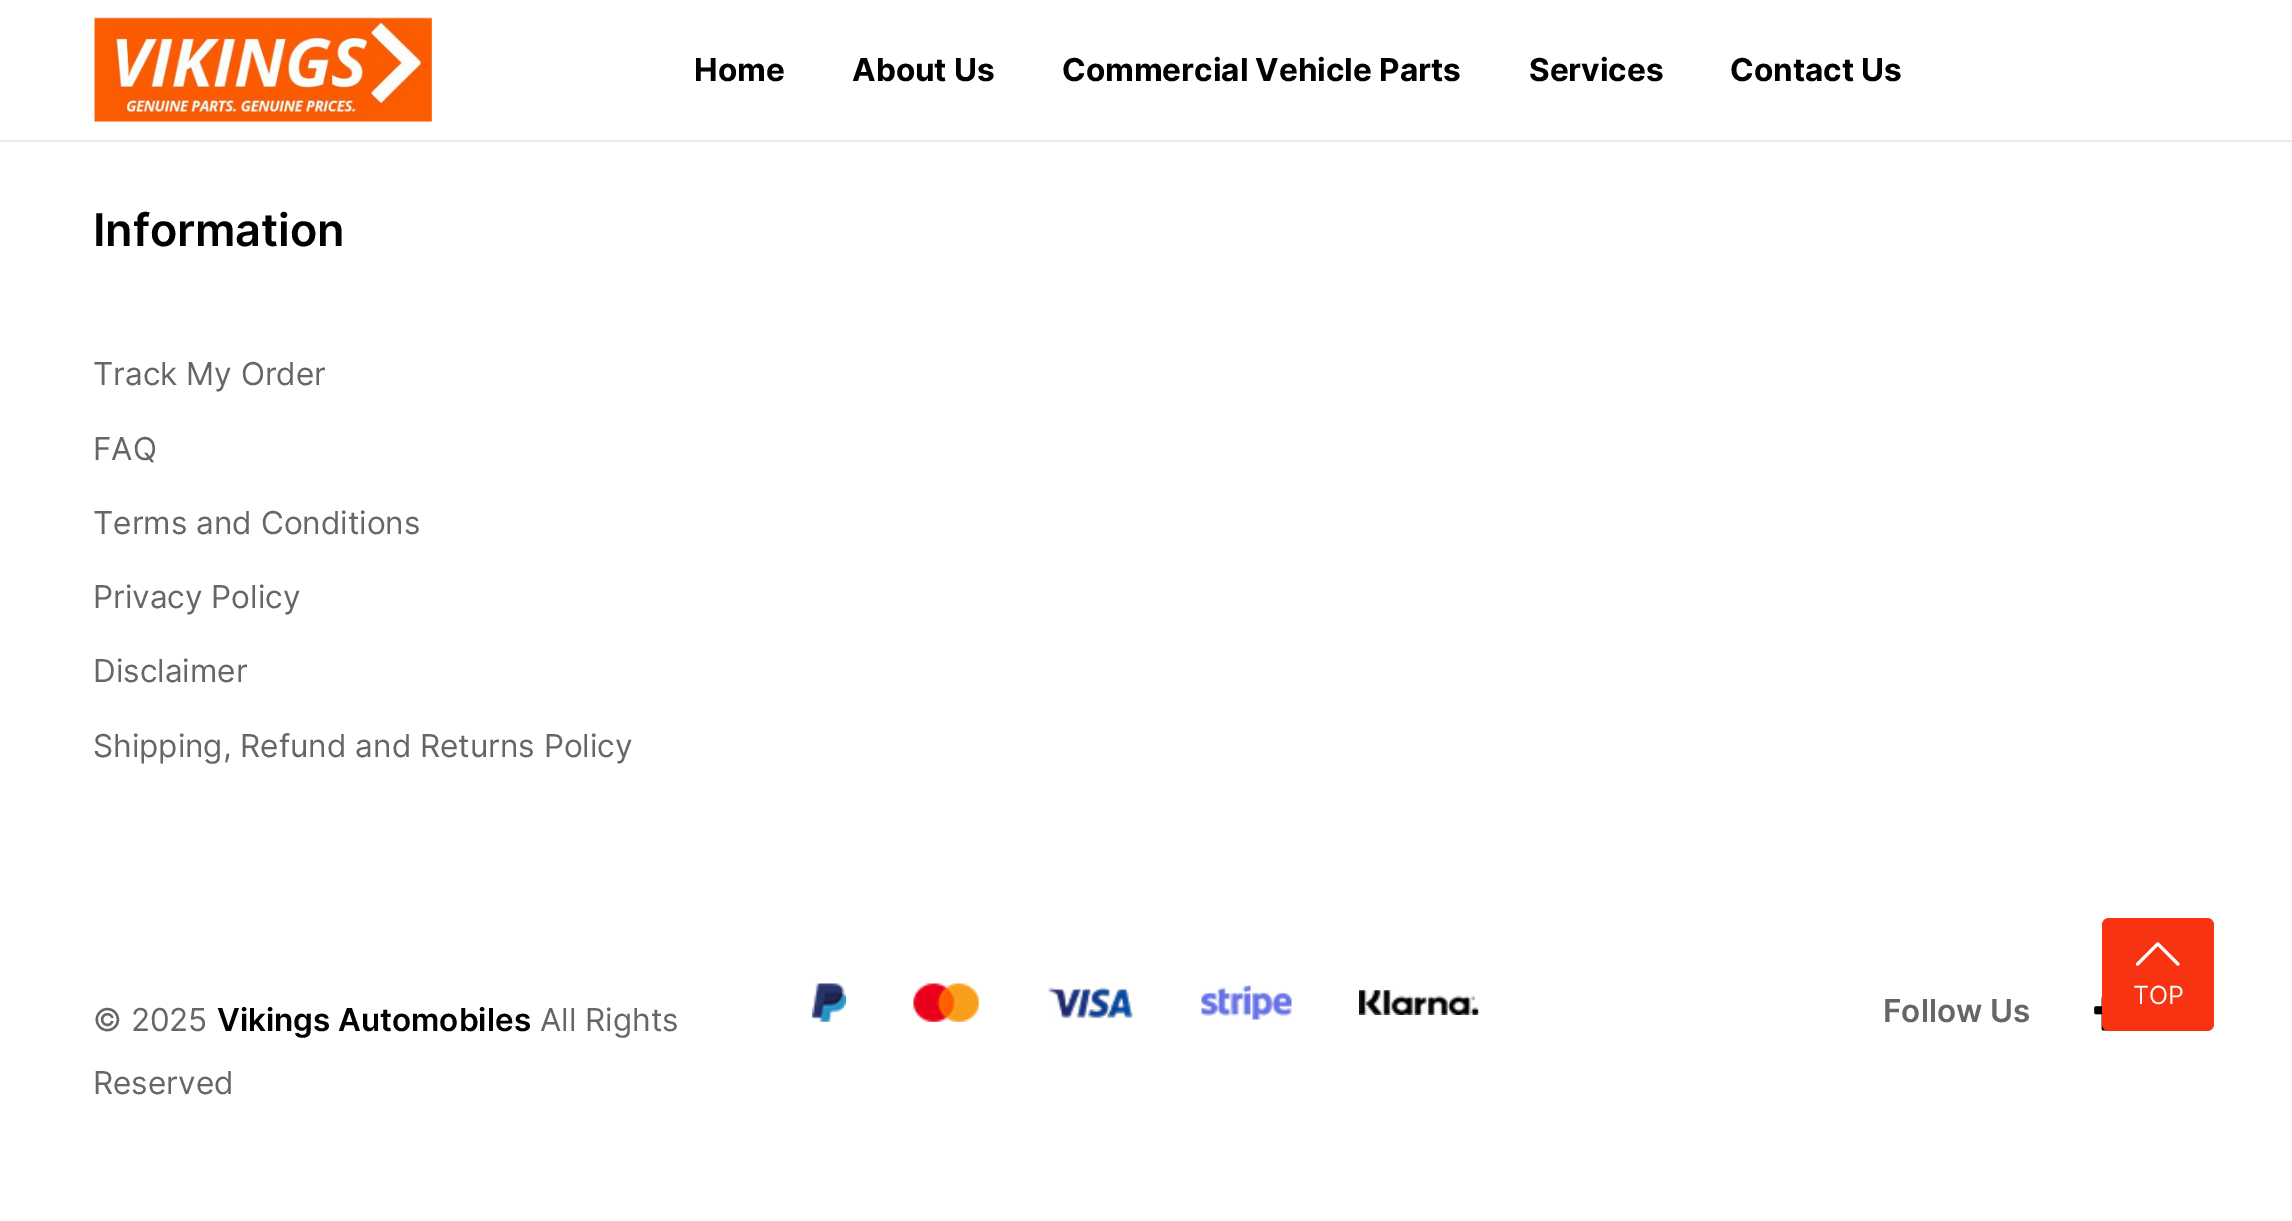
%!PS-Adobe-3.0
%%BoundingBox: 0 0 2292 1221
%%LanguageLevel: 3
%%Pages: 1
%%EndComments
%%BeginProlog
/setink { dup -16 bitshift 255 div exch dup -8 bitshift 255 and 255 div exch 255 and 255 div setrgbcolor } def
/usefont { [ exch dup neg 0 0 3 -1 roll 0 0 ] selectfont } def
/rrect { 5 dict begin { /r /h /w /y /x } { exch def } forall
  x r add y moveto x w add y 2 copy h add r arct x w add y h add x 1 index r arct
  x y h add x y r arct x y 2 copy exch w add exch r arct closepath end } def
/drawimage { 5 dict begin { /h /w /y /x /name } { exch def } forall
  gsave x y translate w h scale
  w h 8 [w 0 0 h 0 0] name (r) file false 3 colorimage grestore end } def
%%EndProlog
%%BeginSetup
<< /PageSize [2292 1221] >> setpagedevice
%%EndSetup
%%Page: 1 1
0 1221 translate 1 -1 scale
4 setmiterlimit
16#FFFFFF setink
0 0 2292 1221 rectfill
16#E9E9E9 setink
0 140 2292 2 rectfill
(img1.raw) 94 17 338 105 drawimage
/Inter-Bold 31.5 usefont
16#000000 setink
[
    [(Home) 694 81]
    [(About Us) 852 81]
    [(Commercial Vehicle Parts) 1062 81]
    [(Services) 1529 81]
    [(Contact Us) 1730 81]
] { aload pop moveto show } forall
/Inter-SemiBold 45 usefont
93 246 moveto (Information) show
/Inter-Regular 31.5 usefont
16#666666 setink
[
    [(Track My Order) 93 385]
    [(FAQ) 93 460]
    [(Terms and Conditions) 93 534]
    [(Privacy Policy) 93 608]
    [(Disclaimer) 93 682]
    [(Shipping, Refund and Returns Policy) 93 757]
] { aload pop moveto show } forall
(img8.raw) 2094 996 15 35 drawimage
16#F73312 setink
2102 918 112 113 7 rrect fill
(img2.raw) 2135 942 45 24 drawimage
/Inter-Regular 25 usefont
16#F6F7FA setink
2133 1004 moveto (TOP) show
/Inter-Regular 31.5 usefont
16#666666 setink
93 1031 moveto (© 2025) show
/Inter-SemiBold 31.5 usefont
16#000000 setink
217 1031 moveto (Vikings Automobiles) show
/Inter-Regular 31.5 usefont
16#666666 setink
540 1031 moveto (All Rights) show
93 1094 moveto (Reserved) show
(img3.raw) 812 983 34 39 drawimage
(img4.raw) 913 983 66 39 drawimage
(img5.raw) 1048 987 85 32 drawimage
(img6.raw) 1201 985 91 35 drawimage
(img7.raw) 1359 990 120 25 drawimage
/Inter-SemiBold 31.5 usefont
1883 1022 moveto (Follow Us) show
showpage
%%EOF
